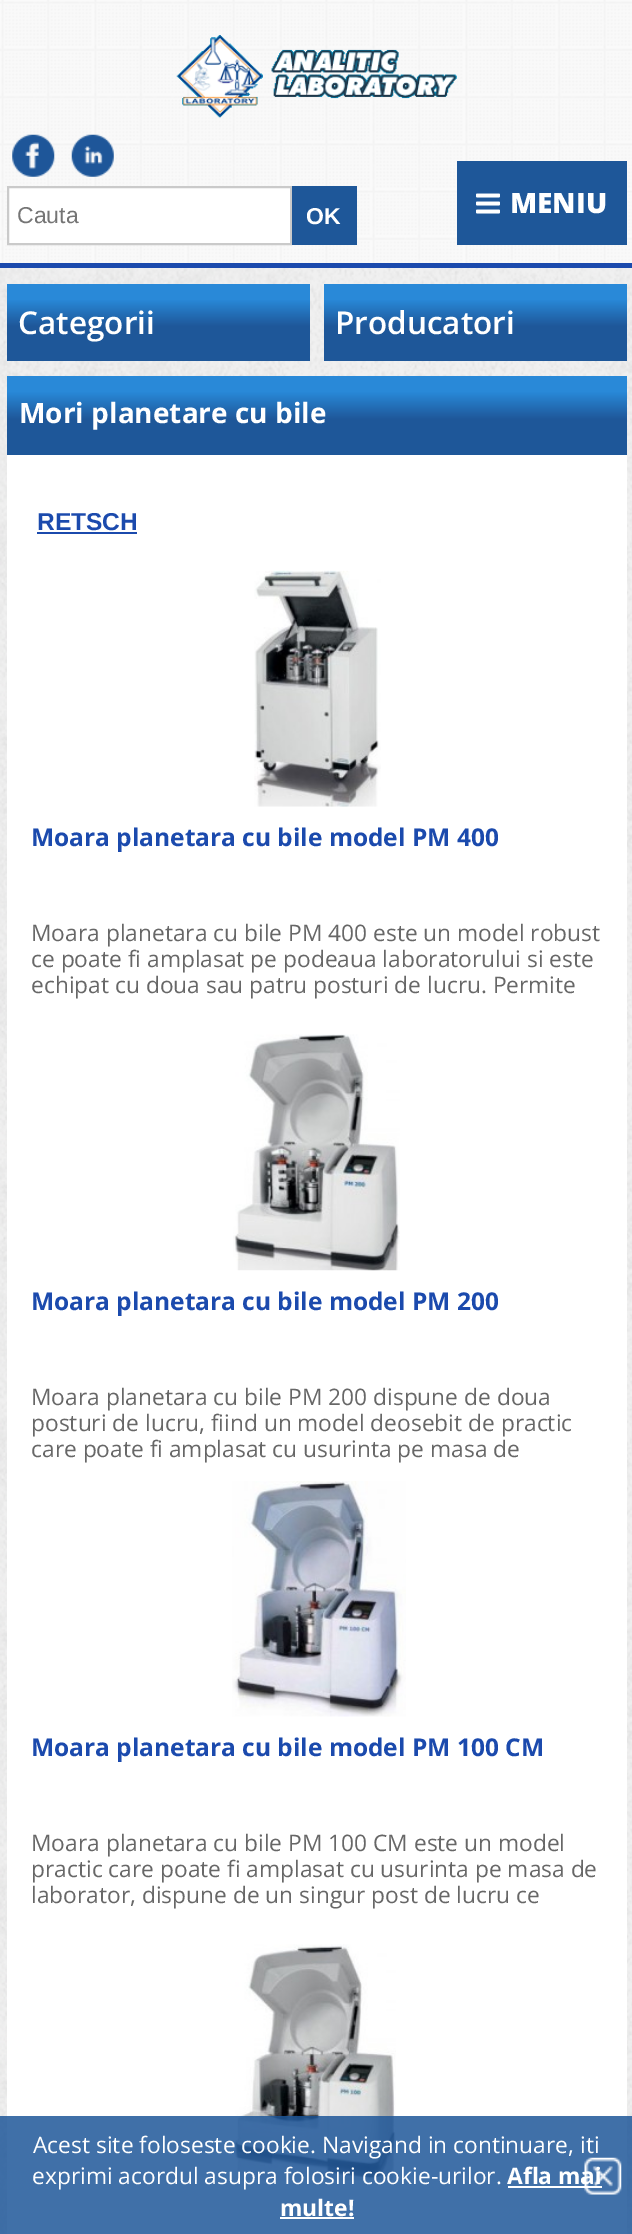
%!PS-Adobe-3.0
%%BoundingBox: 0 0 632 2234
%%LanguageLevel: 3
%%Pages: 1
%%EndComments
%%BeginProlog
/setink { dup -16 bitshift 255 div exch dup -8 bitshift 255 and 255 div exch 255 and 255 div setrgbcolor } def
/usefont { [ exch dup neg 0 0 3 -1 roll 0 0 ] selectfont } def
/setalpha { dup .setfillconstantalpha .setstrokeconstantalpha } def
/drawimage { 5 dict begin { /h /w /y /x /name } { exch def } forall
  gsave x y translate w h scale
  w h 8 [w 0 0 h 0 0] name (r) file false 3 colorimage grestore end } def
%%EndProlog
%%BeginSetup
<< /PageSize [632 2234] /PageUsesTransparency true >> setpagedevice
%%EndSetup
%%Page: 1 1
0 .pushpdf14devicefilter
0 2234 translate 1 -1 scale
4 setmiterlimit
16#FFFFFF setink
0 0 632 2234 rectfill
(img1.raw) 0 0 632 263 drawimage
16#1B4AAD setink
0 263 632 5 rectfill
(img2.raw) 176 35 281 83 drawimage
(img3.raw) 12 134 43 43 drawimage
(img4.raw) 71 134 43 43 drawimage
16#FFFFFF setink
8 187 moveto 291 187 lineto 291 244 lineto 8 244 lineto closepath gsave fill grestore
16#CACACA setink
2 setlinewidth
stroke
/LiberationSans-Regular 23 usefont
16#757575 setink
17 223 moveto (Cauta) show
16#1E5799 setink
292 186 65 59 rectfill
/LiberationSans-Bold 23 usefont
16#FFFFFF setink
306 224 moveto (OK) show
16#1E5799 setink
457 161 170 84 rectfill
(img5.raw) 476 193 24 21 drawimage
/OpenSans-ExtraBold 28 usefont
16#FFFFFF setink
510 213 moveto (MENIU) show
(img6.raw) 0 268 632 1966 drawimage
gsave 7 284 moveto 310 284 lineto 310 361 lineto 7 361 lineto closepath clip newpath
<< /ShadingType 2 /ColorSpace /DeviceRGB /Coords [158 284 158 361] /Extend [true true] /Function << /FunctionType 3 /Domain [0 1] /Functions [<< /FunctionType 2 /Domain [0 1] /C0 [0.161 0.537 0.847] /C1 [0.161 0.537 0.847] /N 1 >> << /FunctionType 2 /Domain [0 1] /C0 [0.161 0.537 0.847] /C1 [0.118 0.341 0.6] /N 1 >> << /FunctionType 2 /Domain [0 1] /C0 [0.118 0.341 0.6] /C1 [0.118 0.341 0.6] /N 1 >>] /Bounds [0.2 0.55] /Encode [0 1 0 1 0 1] >> >> shfill grestore
/OpenSans-SemiBold 31.5 usefont
18 334 moveto (Categorii) show
gsave 324 284 moveto 627 284 lineto 627 361 lineto 324 361 lineto closepath clip newpath
<< /ShadingType 2 /ColorSpace /DeviceRGB /Coords [475 284 475 361] /Extend [true true] /Function << /FunctionType 3 /Domain [0 1] /Functions [<< /FunctionType 2 /Domain [0 1] /C0 [0.161 0.537 0.847] /C1 [0.161 0.537 0.847] /N 1 >> << /FunctionType 2 /Domain [0 1] /C0 [0.161 0.537 0.847] /C1 [0.118 0.341 0.6] /N 1 >> << /FunctionType 2 /Domain [0 1] /C0 [0.118 0.341 0.6] /C1 [0.118 0.341 0.6] /N 1 >>] /Bounds [0.2 0.55] /Encode [0 1 0 1 0 1] >> >> shfill grestore
335 334 moveto (Producatori) show
7 455 620 1779 rectfill
gsave 7 376 moveto 627 376 lineto 627 455 lineto 7 455 lineto closepath clip newpath
<< /ShadingType 2 /ColorSpace /DeviceRGB /Coords [317 376 317 455] /Extend [true true] /Function << /FunctionType 3 /Domain [0 1] /Functions [<< /FunctionType 2 /Domain [0 1] /C0 [0.161 0.537 0.847] /C1 [0.161 0.537 0.847] /N 1 >> << /FunctionType 2 /Domain [0 1] /C0 [0.161 0.537 0.847] /C1 [0.118 0.341 0.6] /N 1 >> << /FunctionType 2 /Domain [0 1] /C0 [0.118 0.341 0.6] /C1 [0.118 0.341 0.6] /N 1 >>] /Bounds [0.2 0.55] /Encode [0 1 0 1 0 1] >> >> shfill grestore
/OpenSans-Bold 28 usefont
19 423 moveto (Mori planetare cu bile) show
/LiberationSans-Bold 24.5 usefont
16#1B4AAD setink
37 530 moveto (RETSCH) show
37 532 100 2 rectfill
(img7.raw) 254 570 127 237 drawimage
/OpenSans-Bold 24.5 usefont
31 846 moveto (Moara planetara cu bile model PM 400) show
/OpenSans-Regular 22.75 usefont
16#676767 setink
[
    [(Moara planetara cu bile PM 400 este un model robust) 31 941]
    [(ce poate fi amplasat pe podeaua laboratorului si este) 31 967]
    [(echipat cu doua sau patru posturi de lucru. Permite) 31 993]
] { aload pop moveto show } forall
(img8.raw) 233 1034 167 237 drawimage
/OpenSans-Bold 24.5 usefont
16#1B4AAD setink
31 1310 moveto (Moara planetara cu bile model PM 200) show
/OpenSans-Regular 22.75 usefont
16#676767 setink
[
    [(Moara planetara cu bile PM 200 dispune de doua) 31 1405]
    [(posturi de lucru, fiind un model deosebit de practic) 31 1431]
    [(care poate fi amplasat cu usurinta pe masa de) 31 1457]
] { aload pop moveto show } forall
(img9.raw) 232 1481 174 236 drawimage
/OpenSans-Bold 24.5 usefont
16#1B4AAD setink
31 1756 moveto (Moara planetara cu bile model PM 100 CM) show
/OpenSans-Regular 22.75 usefont
16#676767 setink
[
    [(Moara planetara cu bile PM 100 CM este un model) 31 1851]
    [(practic care poate fi amplasat cu usurinta pe masa de) 31 1877]
    [(laborator, dispune de un singur post de lucru ce) 31 1903]
] { aload pop moveto show } forall
(img10.raw) 232 1944 164 237 drawimage
0.85 setalpha
16#1F5799 setink
0 2116 632 118 rectfill
1 setalpha
16#FFFFFF setink
33 2153 moveto (Acest site foloseste cookie. Navigand in continuare, iti) show
32 2184 moveto (exprimi acordul asupra folosiri cookie-urilor.) show
/OpenSans-Bold 22.75 usefont
507 2184 moveto (Afla mai) show
508 2186 94 2 rectfill
(img11.raw) 584 2157 38 38 drawimage
280 2216 moveto (multe!) show
280 2217 74 2 rectfill
.poppdf14devicefilter showpage
%%EOF
